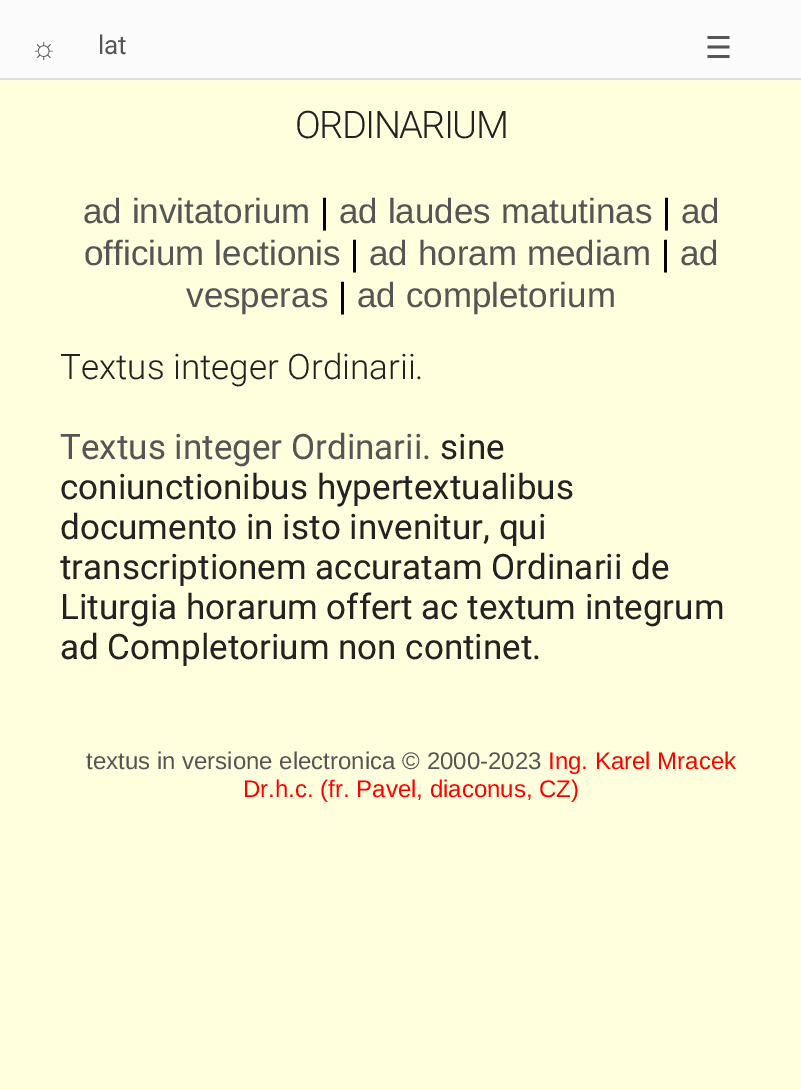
%!PS-Adobe-3.0
%%BoundingBox: 0 0 801 1090
%%LanguageLevel: 3
%%Pages: 1
%%EndComments
%%BeginProlog
/setink { dup -16 bitshift 255 div exch dup -8 bitshift 255 and 255 div exch 255 and 255 div setrgbcolor } def
/usefont { [ exch dup neg 0 0 3 -1 roll 0 0 ] selectfont } def
%%EndProlog
%%BeginSetup
<< /PageSize [801 1090] >> setpagedevice
%%EndSetup
%%Page: 1 1
0 1090 translate 1 -1 scale
4 setmiterlimit
16#FFFFDD setink
0 0 801 1090 rectfill
16#FBFBFB setink
0 0 801 78 rectfill
16#DEDEDE setink
0 78 801 2 rectfill
/LiberationSans-Regular 30 usefont
16#555555 setink
30 58 moveto (☼) show
/Roboto-Regular 26 usefont
98 54 moveto (lat) show
/DejaVuSans-Regular 30 usefont
705 58 moveto (☰) show
/Roboto-Light 38 usefont
16#222222 setink
295 138 moveto -1.6 0 (ORDINARIUM) ashow
/LiberationSans-Regular 35 usefont
16#555555 setink
83 223 moveto (ad invitatorium) show
16#000000 setink
320 223 moveto (|) show
16#555555 setink
339 223 moveto (ad laudes matutinas) show
16#000000 setink
662 223 moveto (|) show
16#555555 setink
681 223 moveto (ad) show
84 265 moveto (officium lectionis) show
16#000000 setink
350 265 moveto (|) show
16#555555 setink
369 265 moveto (ad horam mediam) show
16#000000 setink
661 265 moveto (|) show
16#555555 setink
680 265 moveto (ad) show
186 307 moveto (vesperas) show
16#000000 setink
338 307 moveto (|) show
16#555555 setink
357 307 moveto (ad completorium) show
/Roboto-Light 35 usefont
16#222222 setink
60 379 moveto (Textus integer Ordinarii.) show
/Roboto-Regular 35 usefont
16#555555 setink
60 459 moveto (Textus integer Ordinarii.) show
16#222222 setink
[
    [(sine) 440 459]
    [(coniunctionibus hypertextualibus) 60 499]
    [(documento in isto invenitur, qui) 60 539]
    [(transcriptionem accuratam Ordinarii de) 60 579]
    [(Liturgia horarum offert ac textum integrum) 60 619]
    [(ad Completorium non continet.) 60 659]
] { aload pop moveto show } forall
/LiberationSans-Regular 24 usefont
16#555555 setink
86 769 moveto (textus in versione electronica © 2000-2023) show
16#FF0000 setink
548 769 moveto (Ing. Karel Mracek) show
243 797 moveto (Dr.h.c. \(fr. Pavel, diaconus, CZ\)) show
showpage
%%EOF
